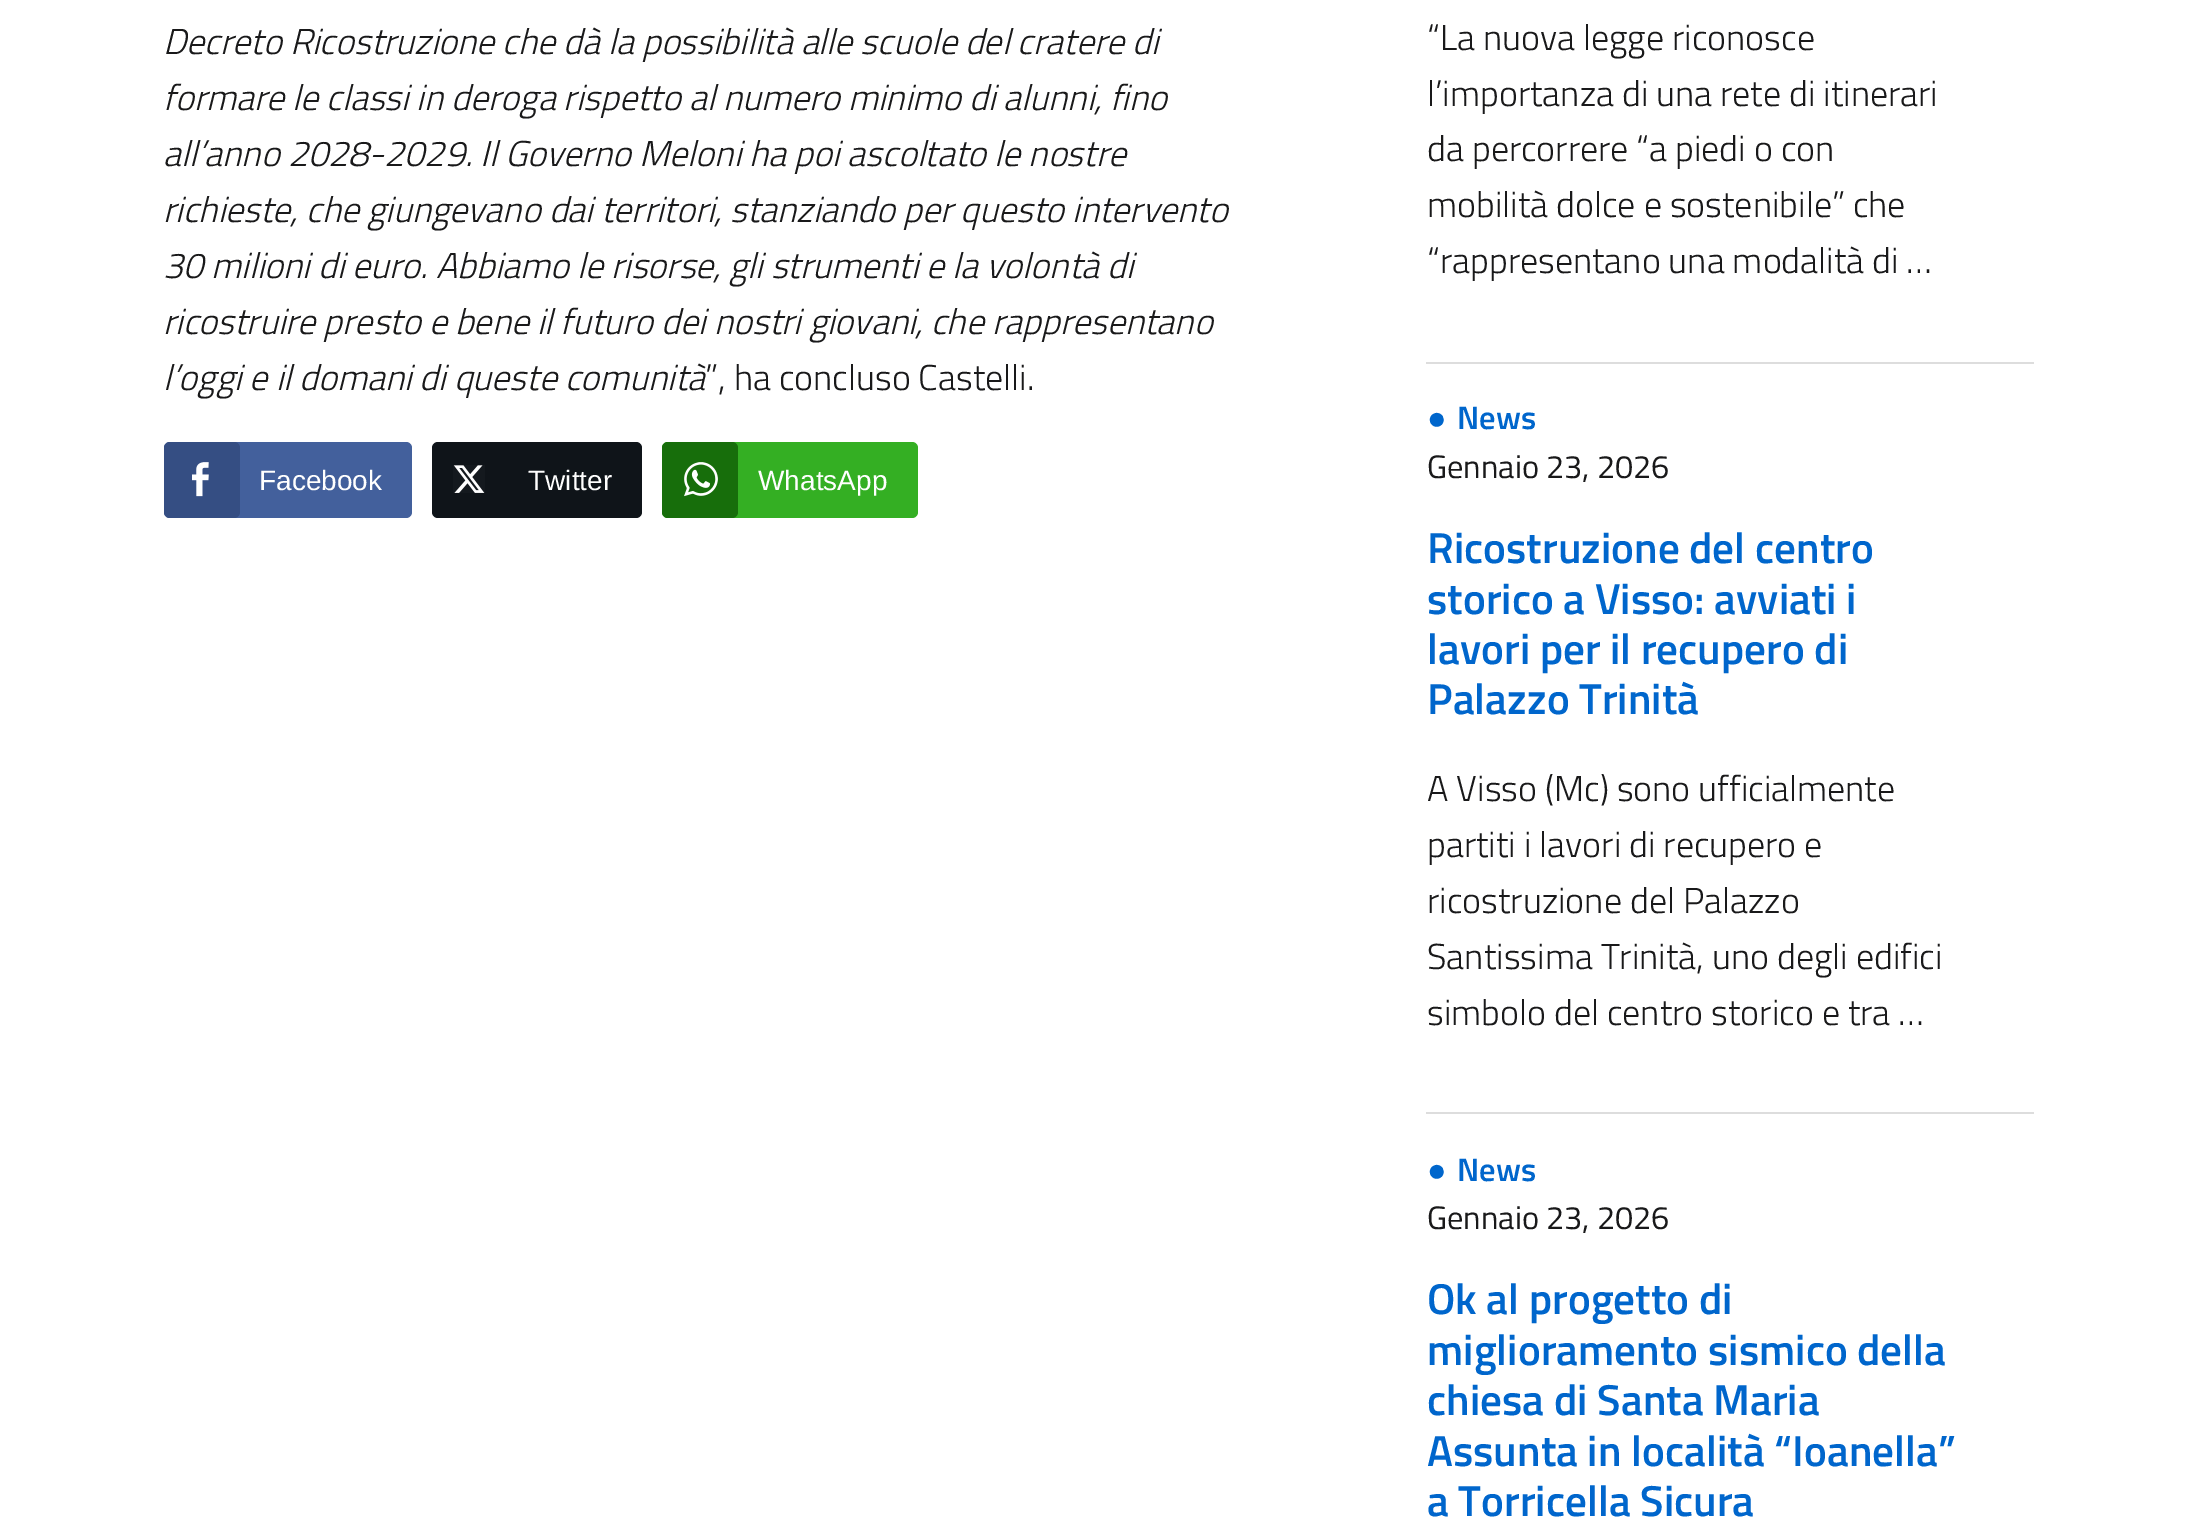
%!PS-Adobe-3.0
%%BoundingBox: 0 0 2198 1532
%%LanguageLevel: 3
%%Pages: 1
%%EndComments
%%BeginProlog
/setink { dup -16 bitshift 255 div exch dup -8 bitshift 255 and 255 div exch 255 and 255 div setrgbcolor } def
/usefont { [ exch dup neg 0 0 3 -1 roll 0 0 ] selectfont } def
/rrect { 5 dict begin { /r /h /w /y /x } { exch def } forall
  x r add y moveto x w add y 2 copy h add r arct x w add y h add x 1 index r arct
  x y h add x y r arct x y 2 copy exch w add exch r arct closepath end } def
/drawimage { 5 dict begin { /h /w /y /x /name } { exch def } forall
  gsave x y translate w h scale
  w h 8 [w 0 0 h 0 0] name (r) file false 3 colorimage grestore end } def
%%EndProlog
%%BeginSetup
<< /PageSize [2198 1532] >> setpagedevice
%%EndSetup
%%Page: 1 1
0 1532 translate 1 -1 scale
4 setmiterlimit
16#FFFFFF setink
0 0 2198 1532 rectfill
/TitilliumWeb-LightItalic 36 usefont
16#19191A setink
[
    [(Decreto Ricostruzione che dà la possibilità alle scuole del cratere di) 163 54]
    [(formare le classi in deroga rispetto al numero minimo di alunni, fino) 163 110]
    [(all’anno 2028-2029. Il Governo Meloni ha poi ascoltato le nostre) 163 166]
    [(richieste, che giungevano dai territori, stanziando per questo intervento) 163 222]
    [(30 milioni di euro. Abbiamo le risorse, gli strumenti e la volontà di) 163 278]
    [(ricostruire presto e bene il futuro dei nostri giovani, che rappresentano) 163 334]
    [(l’oggi e il domani di queste comunità) 163 390]
] { aload pop moveto show } forall
/TitilliumWeb-Light 36 usefont
705 390 moveto (”, ha concluso Castelli.) show
16#43609C setink
164 442 248 76 6 rrect fill
16#354E83 setink
164 442 76 76 6 rrect fill
(img1.raw) 192 462 17 35 drawimage
/LiberationSans-Regular 28 usefont
16#FFFFFF setink
259 490 moveto (Facebook) show
16#0F1419 setink
432 442 210 76 6 rrect fill
(img2.raw) 453 465 32 28 drawimage
16#FFFFFF setink
528 490 moveto (Twitter) show
16#34AF23 setink
662 442 256 76 6 rrect fill
16#176E0B setink
662 442 76 76 6 rrect fill
(img3.raw) 684 462 34 35 drawimage
16#FFFFFF setink
758 490 moveto (WhatsApp) show
/TitilliumWeb-Light 36 usefont
16#19191A setink
[
    [(“La nuova legge riconosce) 1427 50]
    [(l’importanza di una rete di itinerari) 1427 106]
    [(da percorrere “a piedi o con) 1427 161]
    [(mobilità dolce e sostenibile” che) 1427 217]
    [(“rappresentano una modalità di …) 1427 273]
] { aload pop moveto show } forall
16#DDDDDD setink
1426 362 608 2 rectfill
/LiberationSans-Bold 32.5 usefont
16#0066CC setink
1427 429 moveto (●) show
/TitilliumWeb-SemiBold 32.5 usefont
1457 429 moveto (News) show
/TitilliumWeb-Regular 32.5 usefont
16#19191A setink
1427 478 moveto (Gennaio 23, 2026) show
/TitilliumWeb-SemiBold 43.25 usefont
16#0066CC setink
[
    [(Ricostruzione del centro) 1427 563]
    [(storico a Visso: avviati i) 1427 614]
    [(lavori per il recupero di) 1427 664]
    [(Palazzo Trinità) 1427 714]
] { aload pop moveto show } forall
/TitilliumWeb-Light 36 usefont
16#19191A setink
[
    [(A Visso \(Mc\) sono ufficialmente) 1427 801]
    [(partiti i lavori di recupero e) 1427 857]
    [(ricostruzione del Palazzo) 1427 913]
    [(Santissima Trinità, uno degli edifici) 1427 969]
    [(simbolo del centro storico e tra …) 1427 1025]
] { aload pop moveto show } forall
16#DDDDDD setink
1426 1112 608 2 rectfill
/LiberationSans-Bold 32.5 usefont
16#0066CC setink
1427 1181 moveto (●) show
/TitilliumWeb-SemiBold 32.5 usefont
1457 1181 moveto (News) show
/TitilliumWeb-Regular 32.5 usefont
16#19191A setink
1427 1229 moveto (Gennaio 23, 2026) show
/TitilliumWeb-SemiBold 43.25 usefont
16#0066CC setink
[
    [(Ok al progetto di) 1427 1314]
    [(miglioramento sismico della) 1427 1365]
    [(chiesa di Santa Maria) 1427 1415]
    [(Assunta in località “Ioanella”) 1427 1466]
    [(a Torricella Sicura) 1427 1516]
] { aload pop moveto show } forall
showpage
%%EOF
